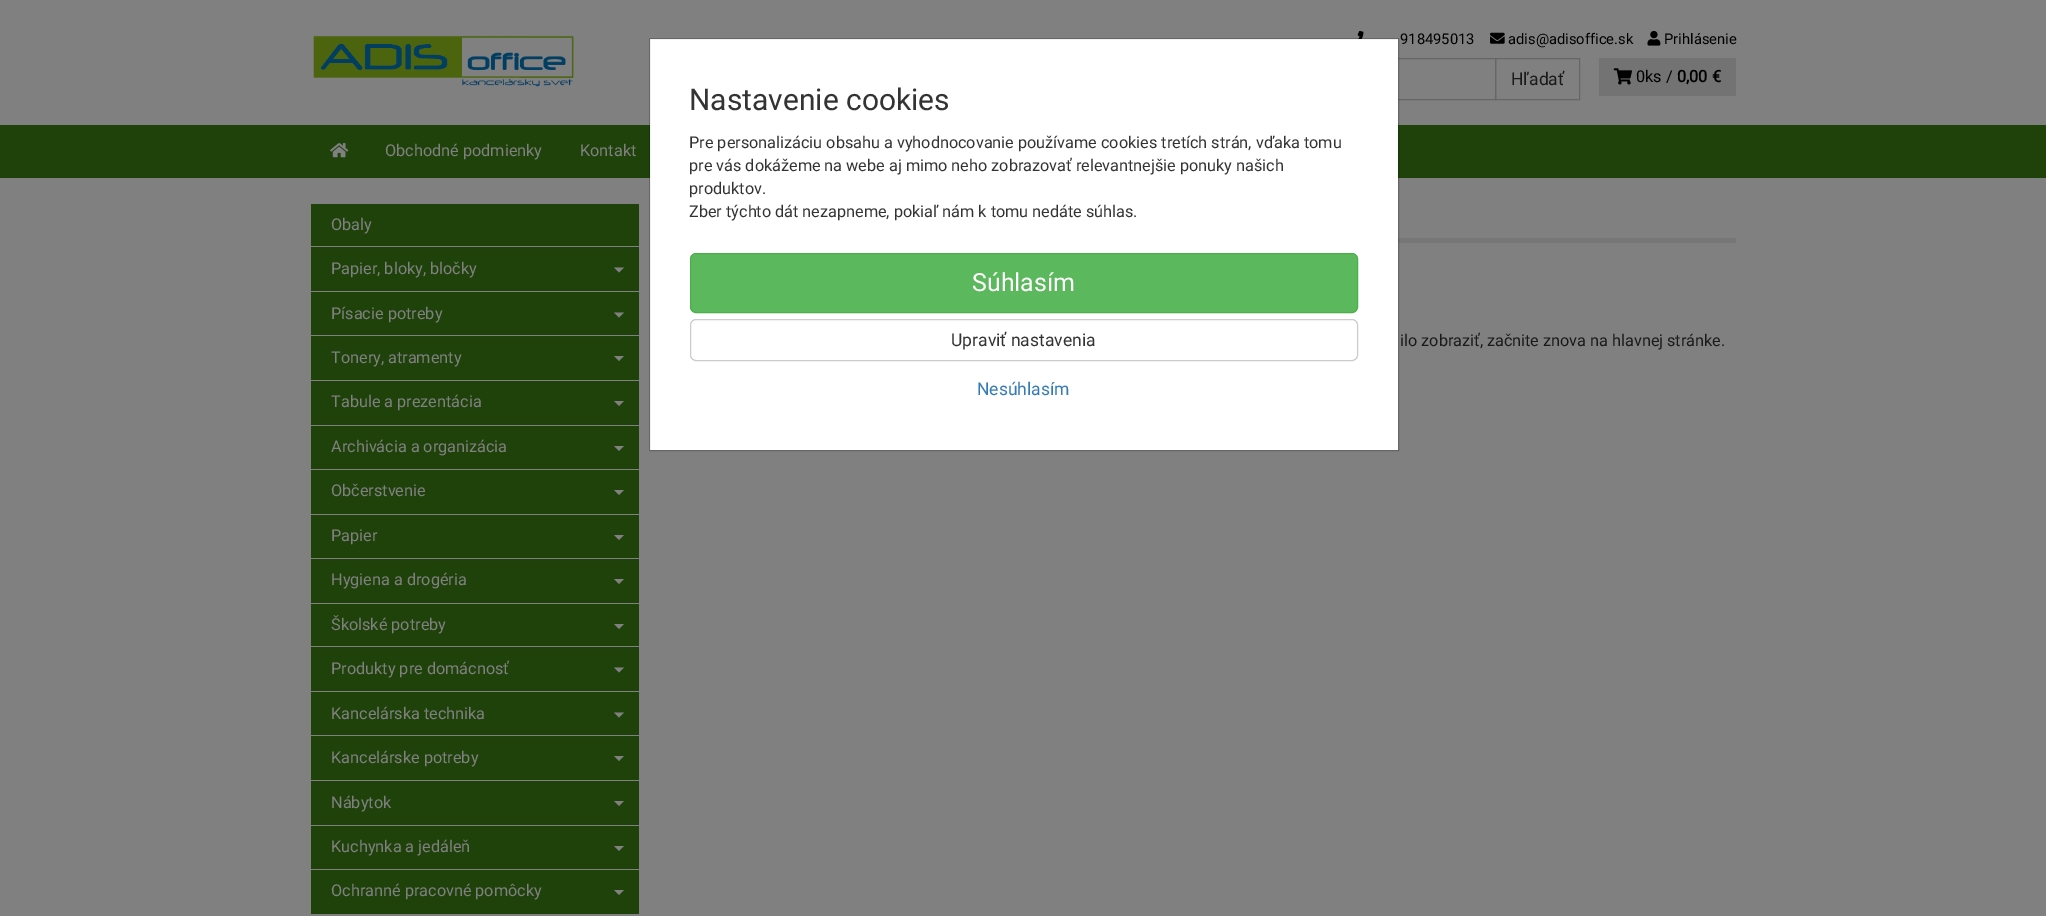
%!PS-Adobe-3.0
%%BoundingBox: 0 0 2046 916
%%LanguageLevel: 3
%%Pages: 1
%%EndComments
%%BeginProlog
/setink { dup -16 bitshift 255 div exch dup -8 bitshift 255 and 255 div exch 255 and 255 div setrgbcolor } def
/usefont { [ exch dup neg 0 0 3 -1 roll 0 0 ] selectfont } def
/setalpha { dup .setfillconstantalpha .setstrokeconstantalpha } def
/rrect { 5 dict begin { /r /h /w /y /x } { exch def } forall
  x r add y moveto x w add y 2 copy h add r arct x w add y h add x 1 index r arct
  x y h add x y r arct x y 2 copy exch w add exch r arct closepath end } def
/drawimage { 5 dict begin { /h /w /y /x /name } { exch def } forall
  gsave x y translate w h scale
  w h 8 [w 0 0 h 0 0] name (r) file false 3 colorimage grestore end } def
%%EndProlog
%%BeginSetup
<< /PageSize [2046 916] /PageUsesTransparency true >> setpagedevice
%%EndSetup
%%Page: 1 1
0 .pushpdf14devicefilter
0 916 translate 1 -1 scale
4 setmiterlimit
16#808080 setink
0 0 2046 916 rectfill
(img1.raw) 313 35 261 52 drawimage
(img2.raw) 1357 31 7 8 drawimage
/Roboto-Regular 14.75 usefont
16#000000 setink
1400 44 moveto (918495013) show
(img3.raw) 1490 32 15 12 drawimage
1508 44 moveto (adis@adisoffice.sk) show
(img4.raw) 1647 30 14 16 drawimage
1664 44 moveto (Prihlásenie) show
16#666666 setink
1121.5 58.5 374 41 rectstroke
1495.5 58.5 84 41 rectstroke
/Roboto-Regular 17.5 usefont
16#1A1A1A setink
1511 85 moveto (Hľadať) show
16#737373 setink
1599 58 137 38 rectfill
(img5.raw) 1613 68 19 17 drawimage
/Roboto-Regular 16.25 usefont
16#000000 setink
1636 82 moveto (0ks /) show
/Roboto-Bold 16.25 usefont
1677 82 moveto (0,00 €) show
16#1E420A setink
0 125 2046 53 rectfill
(img6.raw) 330 143 19 15 drawimage
/Roboto-Regular 16.25 usefont
16#808080 setink
385 156 moveto (Obchodné podmienky) show
580 156 moveto (Kontakt) show
16#FFFFFF setink
650 39 748 411 rectfill
16#767676 setink
1398 238 338 5 rectfill
0.2 setalpha
16#000000 setink
649.5 38.5 749 412 rectstroke
/Roboto-Regular 30 usefont
1 setalpha
16#333333 setink
689 110 moveto (Nastavenie cookies) show
/Roboto-Regular 16.25 usefont
[
    [(Pre personalizáciu obsahu a vyhodnocovanie používame cookies tretích strán, vďaka tomu) 689 148]
    [(pre vás dokážeme na webe aj mimo neho zobrazovať relevantnejšie ponuky našich) 689 171]
    [(produktov.) 689 194]
    [(Zber týchto dát nezapneme, pokiaľ nám k tomu nedáte súhlas.) 689 217]
] { aload pop moveto show } forall
16#5CB85C setink
690.5 253.5 667 59 5.5 rrect gsave fill grestore
16#4CAE4C setink
stroke
/Roboto-Regular 25 usefont
16#FFFFFF setink
972 291 moveto (Súhlasím) show
16#CCCCCC setink
690.5 319.5 667 41 5.5 rrect stroke
/Roboto-Regular 17.5 usefont
16#333333 setink
951 346 moveto (Upraviť nastavenia) show
16#337AB7 setink
977 395 moveto (Nesúhlasím) show
16#1E420A setink
311 204 328 42 rectfill
/Roboto-Regular 16.25 usefont
16#808080 setink
331 230 moveto (Obaly) show
16#1E420A setink
311 247 328 44 rectfill
16#808080 setink
331 274 moveto (Papier, bloky, bločky) show
614 267.5 moveto 624 267.5 lineto 619 272.5 lineto closepath fill
16#1E420A setink
311 292 328 43 rectfill
16#808080 setink
331 319 moveto (Písacie potreby) show
614 312.5 moveto 624 312.5 lineto 619 317.5 lineto closepath fill
16#1E420A setink
311 336 328 44 rectfill
16#808080 setink
331 363 moveto (Tonery, atramenty) show
614 356 moveto 624 356 lineto 619 361 lineto closepath fill
16#1E420A setink
311 381 328 44 rectfill
16#808080 setink
331 407 moveto (Tabule a prezentácia) show
614 401 moveto 624 401 lineto 619 406 lineto closepath fill
16#1E420A setink
311 426 328 43 rectfill
16#808080 setink
331 452 moveto (Archivácia a organizácia) show
614 446 moveto 624 446 lineto 619 451 lineto closepath fill
16#1E420A setink
311 470 328 44 rectfill
16#808080 setink
331 496 moveto (Občerstvenie) show
614 490 moveto 624 490 lineto 619 495 lineto closepath fill
16#1E420A setink
311 515 328 43 rectfill
16#808080 setink
331 541 moveto (Papier) show
614 535 moveto 624 535 lineto 619 540 lineto closepath fill
16#1E420A setink
311 559 328 44 rectfill
16#808080 setink
331 585 moveto (Hygiena a drogéria) show
614 579 moveto 624 579 lineto 619 584 lineto closepath fill
16#1E420A setink
311 604 328 42 rectfill
16#808080 setink
331 630 moveto (Školské potreby) show
614 624 moveto 624 624 lineto 619 629 lineto closepath fill
16#1E420A setink
311 647 328 44 rectfill
16#808080 setink
331 674 moveto (Produkty pre domácnosť) show
614 667.5 moveto 624 667.5 lineto 619 672.5 lineto closepath fill
16#1E420A setink
311 692 328 43 rectfill
16#808080 setink
331 719 moveto (Kancelárska technika) show
614 712.5 moveto 624 712.5 lineto 619 717.5 lineto closepath fill
16#1E420A setink
311 736 328 44 rectfill
16#808080 setink
331 763 moveto (Kancelárske potreby) show
614 756 moveto 624 756 lineto 619 761 lineto closepath fill
16#1E420A setink
311 781 328 44 rectfill
16#808080 setink
331 808 moveto (Nábytok) show
614 801 moveto 624 801 lineto 619 806 lineto closepath fill
16#1E420A setink
311 826 328 43 rectfill
16#808080 setink
331 852 moveto (Kuchynka a jedáleň) show
614 846 moveto 624 846 lineto 619 851 lineto closepath fill
16#1E420A setink
311 870 328 44 rectfill
16#808080 setink
331 896 moveto (Ochranné pracovné pomôcky) show
614 890 moveto 624 890 lineto 619 895 lineto closepath fill
16#1A1A1A setink
1400 346 moveto (ilo zobraziť, začnite znova na hlavnej stránke.) show
.poppdf14devicefilter showpage
%%EOF
